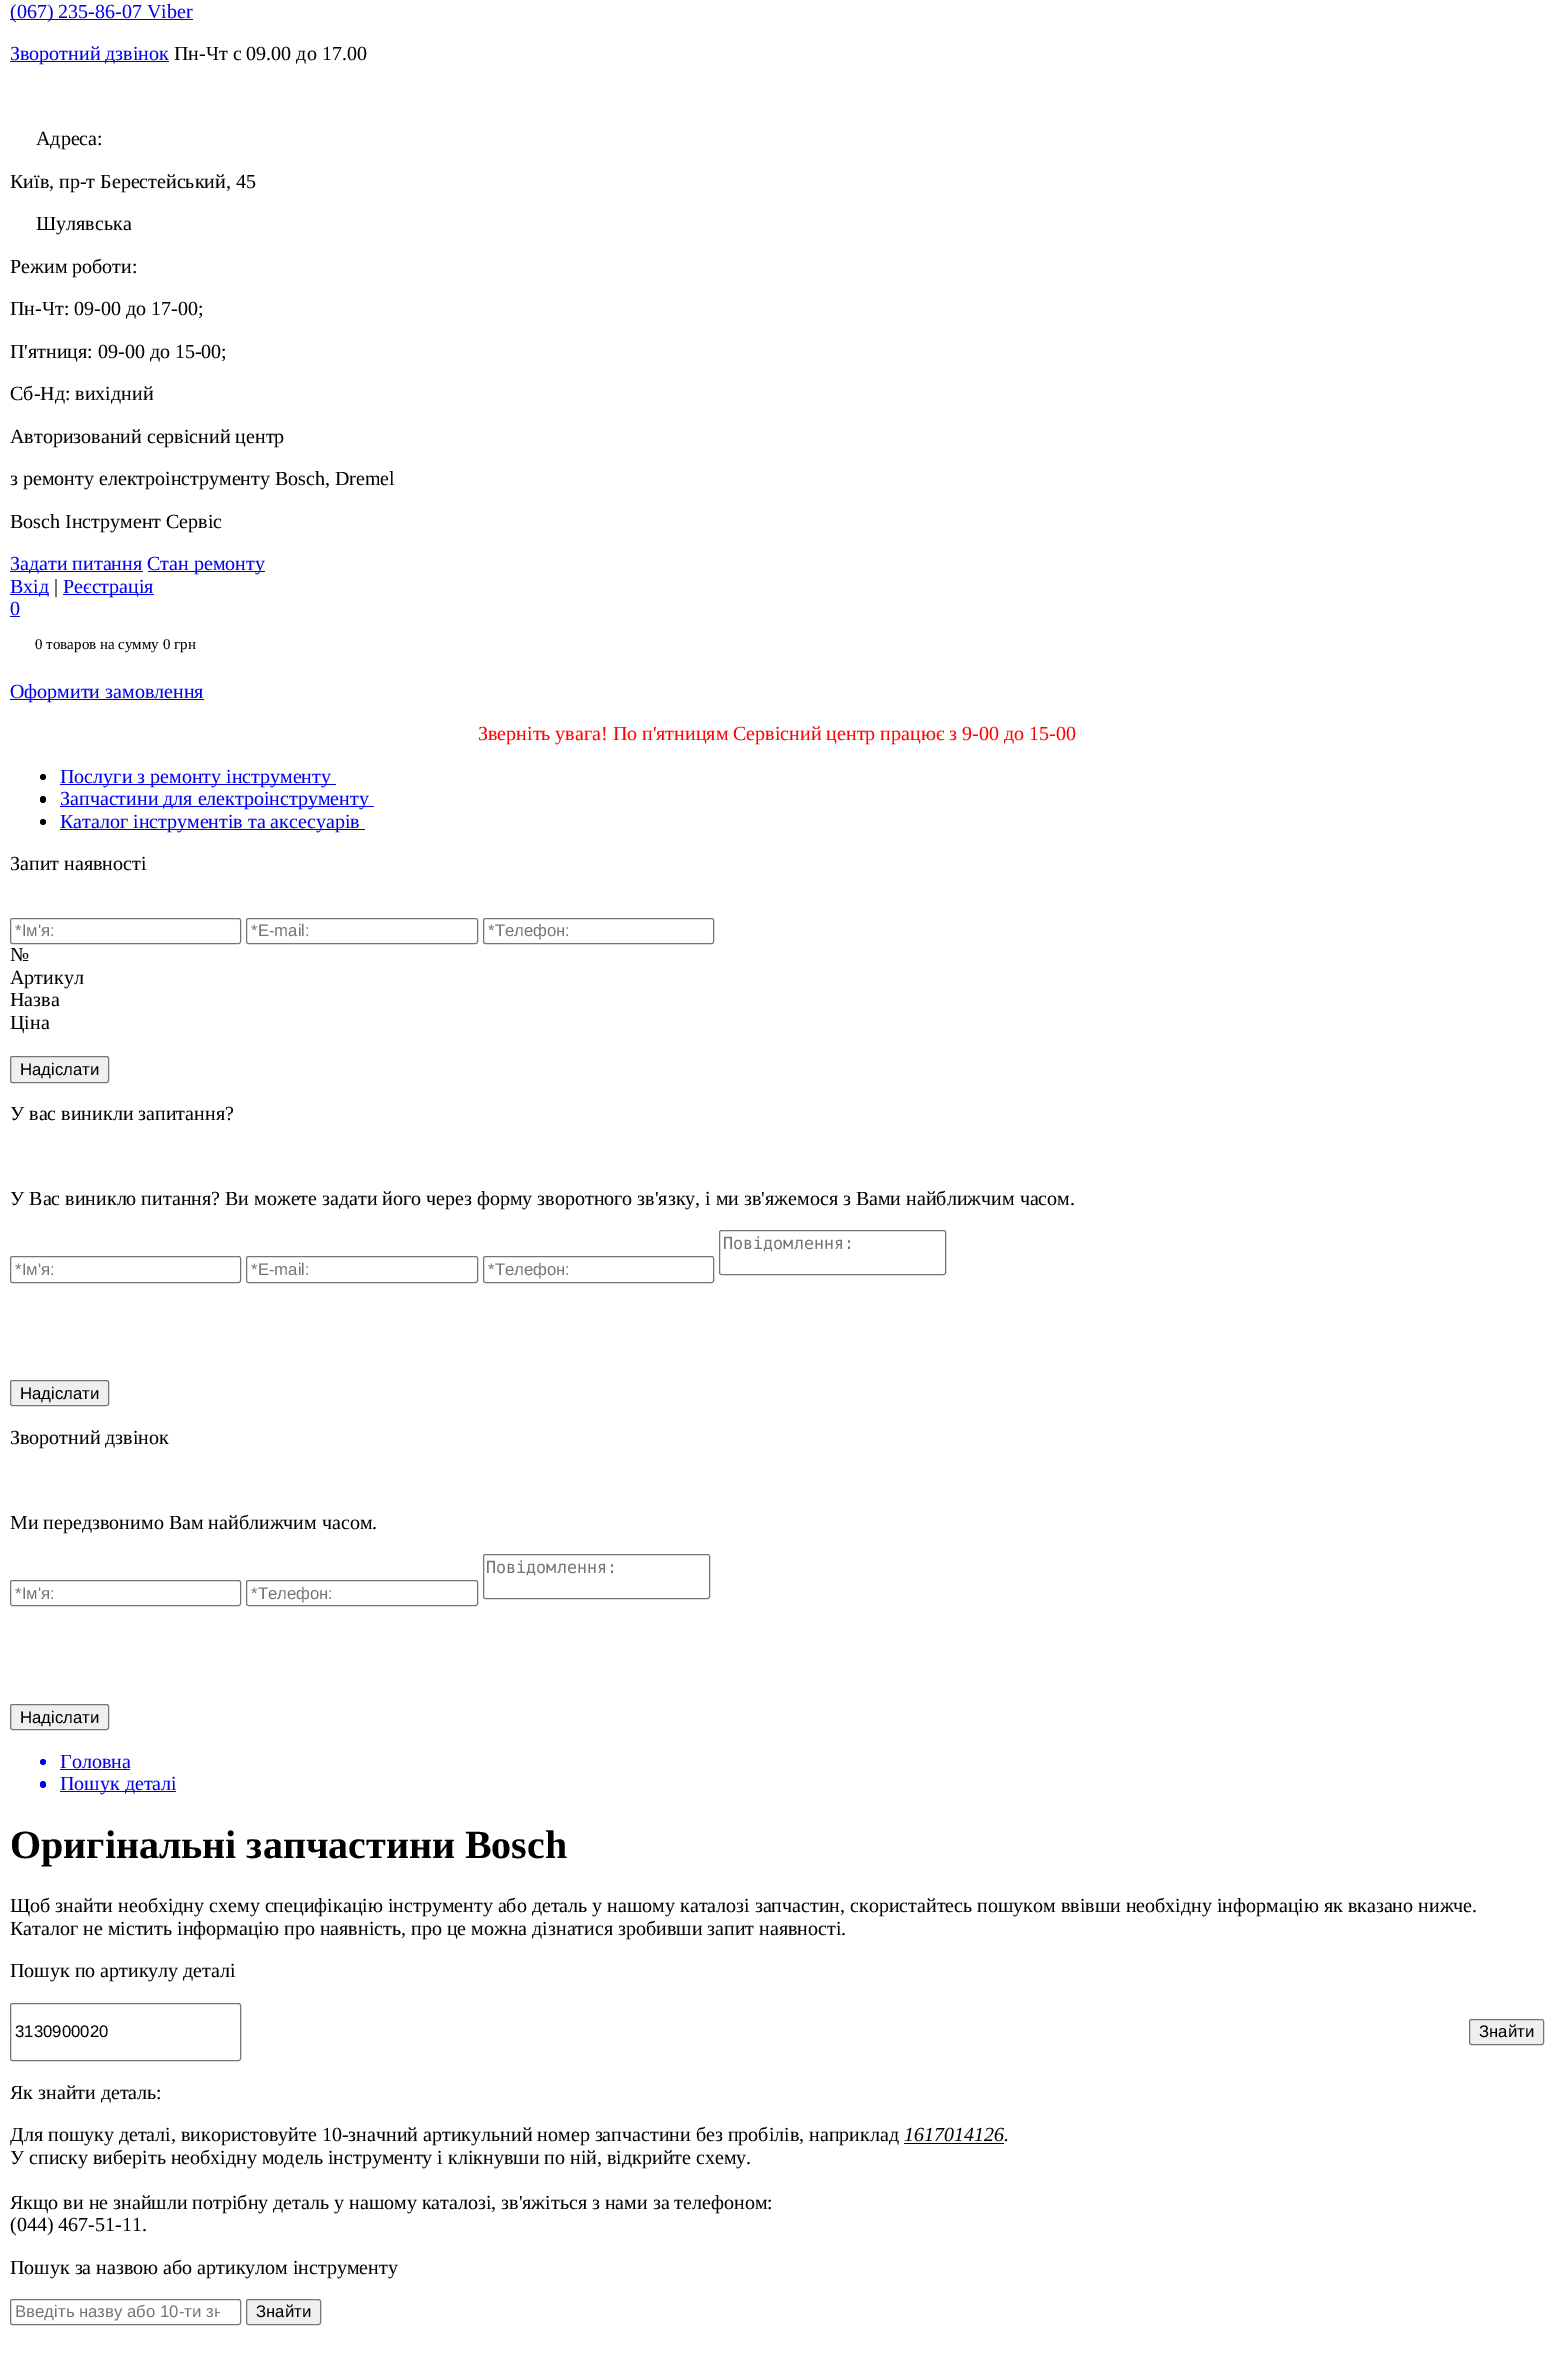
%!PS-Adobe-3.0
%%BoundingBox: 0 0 1553 2358
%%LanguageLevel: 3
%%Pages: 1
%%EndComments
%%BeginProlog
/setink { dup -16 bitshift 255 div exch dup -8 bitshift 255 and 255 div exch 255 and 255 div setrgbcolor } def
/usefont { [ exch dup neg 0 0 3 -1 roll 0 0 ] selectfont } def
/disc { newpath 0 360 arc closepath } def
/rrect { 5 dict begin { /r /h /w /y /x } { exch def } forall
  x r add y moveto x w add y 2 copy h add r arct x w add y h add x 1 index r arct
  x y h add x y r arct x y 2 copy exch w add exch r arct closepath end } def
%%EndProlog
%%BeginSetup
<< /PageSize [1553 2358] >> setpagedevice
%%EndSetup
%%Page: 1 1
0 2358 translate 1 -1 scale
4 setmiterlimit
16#FFFFFF setink
0 0 1553 2358 rectfill
16#0000EE setink
10 19 183 1 rectfill
/LiberationSerif-Regular 20 usefont
10 18 moveto (\(067\) 235-86-07 Viber) show
10 61 159 1 rectfill
10 60 moveto (Зворотний дзвінок) show
16#000000 setink
[
    [(Пн-Чт с 09.00 до 17.00) 174 60]
    [(Адреса:) 36 145]
    [(Київ, пр-т Берестейський, 45) 10 188]
    [(Шулявська) 36 230]
    [(Режим роботи:) 10 273]
    [(Пн-Чт: 09-00 до 17-00;) 10 315]
    [(П'ятниця: 09-00 до 15-00;) 10 358]
    [(Сб-Нд: вихідний) 10 400]
    [(Авторизований сервісний центр) 10 443]
    [(з ремонту електроінструменту Bosch, Dremel) 10 485]
    [(Bosch Інструмент Сервіс) 10 528]
] { aload pop moveto show } forall
16#0000EE setink
10 571 133 1 rectfill
10 570 moveto (Задати питання) show
148 571 117 1 rectfill
147 570 moveto (Стан ремонту) show
10 594 39 1 rectfill
10 593 moveto (Вхід) show
16#000000 setink
54 593 moveto (|) show
16#0000EE setink
63 594 91 1 rectfill
63 593 moveto (Реєстрація) show
10 615 moveto (0) show
10 616 10 1 rectfill
/LiberationSerif-Regular 15 usefont
16#000000 setink
35 649 moveto (0 товаров на сумму 0 грн) show
16#0000EE setink
10 699 194 1 rectfill
/LiberationSerif-Regular 20 usefont
10 698 moveto (Оформити замовлення) show
16#FF0000 setink
478 740 moveto (Зверніть увага! По п'ятницям Сервісний центр працює з 9-00 до 15-00) show
16#000000 setink
43 777 3 disc fill
16#0000EE setink
60 784 276 1 rectfill
60 783 moveto (Послуги з ремонту інструменту) show
16#000000 setink
40 796 6 7 3 rrect fill
16#0000EE setink
60 806 314 1 rectfill
60 805 moveto (Запчастини для електроінструменту) show
16#000000 setink
43 822 3 disc fill
16#0000EE setink
60 829 305 1 rectfill
60 828 moveto (Каталог інструментів та аксесуарів) show
16#000000 setink
10 870 moveto (Запит наявності) show
16#767676 setink
10.5 918.5 230 25 2 rrect stroke
/LiberationSans-Regular 16.75 usefont
16#757575 setink
15 936 moveto (*Ім'я:) show
16#767676 setink
246.5 918.5 231 25 2 rrect stroke
16#757575 setink
251 936 moveto (*Е-mail:) show
16#767676 setink
483.5 918.5 230 25 2 rrect stroke
16#757575 setink
488 936 moveto (*Телефон:) show
/LiberationSerif-Regular 20 usefont
16#000000 setink
[
    [(№) 10 961]
    [(Артикул) 10 984]
    [(Назва) 10 1006]
    [(Ціна) 10 1029]
] { aload pop moveto show } forall
16#EFEFEF setink
10.5 1056.5 98 26 2 rrect gsave fill grestore
16#767676 setink
stroke
/LiberationSans-Regular 16.75 usefont
16#000000 setink
20 1075 moveto (Надіслати) show
/LiberationSerif-Regular 20 usefont
10 1120 moveto (У вас виникли запитання?) show
10 1205 moveto (У Вас виникло питання? Ви можете задати його через форму зворотного зв'язку, і ми зв'яжемося з Вами найближчим часом.) show
16#767676 setink
719.5 1230.5 226 44 2 rrect stroke
/DejaVuSansMono-Regular 16.75 usefont
16#757575 setink
723 1249 moveto (Повідомлення:) show
16#767676 setink
10.5 1256.5 230 26 2 rrect stroke
/LiberationSans-Regular 16.75 usefont
16#757575 setink
15 1275 moveto (*Ім'я:) show
16#767676 setink
246.5 1256.5 231 26 2 rrect stroke
16#757575 setink
251 1275 moveto (*Е-mail:) show
16#767676 setink
483.5 1256.5 230 26 2 rrect stroke
16#757575 setink
488 1275 moveto (*Телефон:) show
16#EFEFEF setink
10.5 1380.5 98 25 2 rrect gsave fill grestore
16#767676 setink
stroke
16#000000 setink
20 1399 moveto (Надіслати) show
/LiberationSerif-Regular 20 usefont
10 1444 moveto (Зворотний дзвінок) show
10 1529 moveto (Ми передзвонимо Вам найближчим часом.) show
16#767676 setink
483.5 1554.5 226 44 2 rrect stroke
/DejaVuSansMono-Regular 16.75 usefont
16#757575 setink
486 1573 moveto (Повідомлення:) show
16#767676 setink
10.5 1580.5 230 25 2 rrect stroke
/LiberationSans-Regular 16.75 usefont
16#757575 setink
15 1599 moveto (*Ім'я:) show
16#767676 setink
246.5 1580.5 231 25 2 rrect stroke
16#757575 setink
251 1599 moveto (*Телефон:) show
16#EFEFEF setink
10.5 1704.5 98 25 2 rrect gsave fill grestore
16#767676 setink
stroke
16#000000 setink
20 1723 moveto (Надіслати) show
16#0000EE setink
43 1762 3 disc fill
/LiberationSerif-Regular 20 usefont
60 1768 moveto (Головна) show
60 1769 70 1 rectfill
40 1781 6 7 3 rrect fill
60 1791 116 1 rectfill
60 1790 moveto (Пошук деталі) show
/LiberationSerif-Bold 40 usefont
16#000000 setink
10 1858 moveto (Оригінальні запчастини Bosch) show
/LiberationSerif-Regular 20 usefont
[
    [(Щоб знайти необхідну схему специфікацію інструменту або деталь у нашому каталозі запчастин, скористайтесь пошуком ввівши необхідну інформацію як вказано нижче.) 10 1912]
    [(Каталог не містить інформацію про наявність, про це можна дізнатися зробивши запит наявності.) 10 1935]
    [(Пошук по артикулу деталі) 10 1977]
] { aload pop moveto show } forall
16#767676 setink
10.5 2003.5 230 57 2 rrect stroke
/LiberationSans-Regular 16.75 usefont
16#000000 setink
15 2037 moveto (3130900020) show
16#EFEFEF setink
1469.5 2019.5 74 25 2 rrect gsave fill grestore
16#767676 setink
stroke
16#000000 setink
1479 2037 moveto (Знайти) show
/LiberationSerif-Regular 20 usefont
10 2099 moveto (Як знайти деталь:) show
10 2141 moveto (Для пошуку деталі, використовуйте 10-значний артикульний номер запчастини без пробілів, наприклад) show
/LiberationSerif-Italic 20 usefont
904 2141 moveto (1617014126.) show
904 2143 100 1 rectfill
/LiberationSerif-Regular 20 usefont
[
    [(У списку виберіть необхідну модель інструменту і клікнувши по ній, відкрийте схему.) 10 2164]
    [(Якщо ви не знайшли потрібну деталь у нашому каталозі, зв'яжіться з нами за телефоном:) 10 2209]
    [(\(044\) 467-51-11.) 10 2231]
    [(Пошук за назвою або артикулом інструменту) 10 2274]
] { aload pop moveto show } forall
16#767676 setink
10.5 2299.5 230 25 2 rrect stroke
gsave
15 2303 205 18 rectclip
/LiberationSans-Regular 16.75 usefont
16#757575 setink
15 2317 moveto (Введіть назву або 10-ти зн) show
grestore
16#EFEFEF setink
246.5 2299.5 74 25 2 rrect gsave fill grestore
16#767676 setink
stroke
/LiberationSans-Regular 16.75 usefont
16#000000 setink
256 2317 moveto (Знайти) show
showpage
%%EOF
